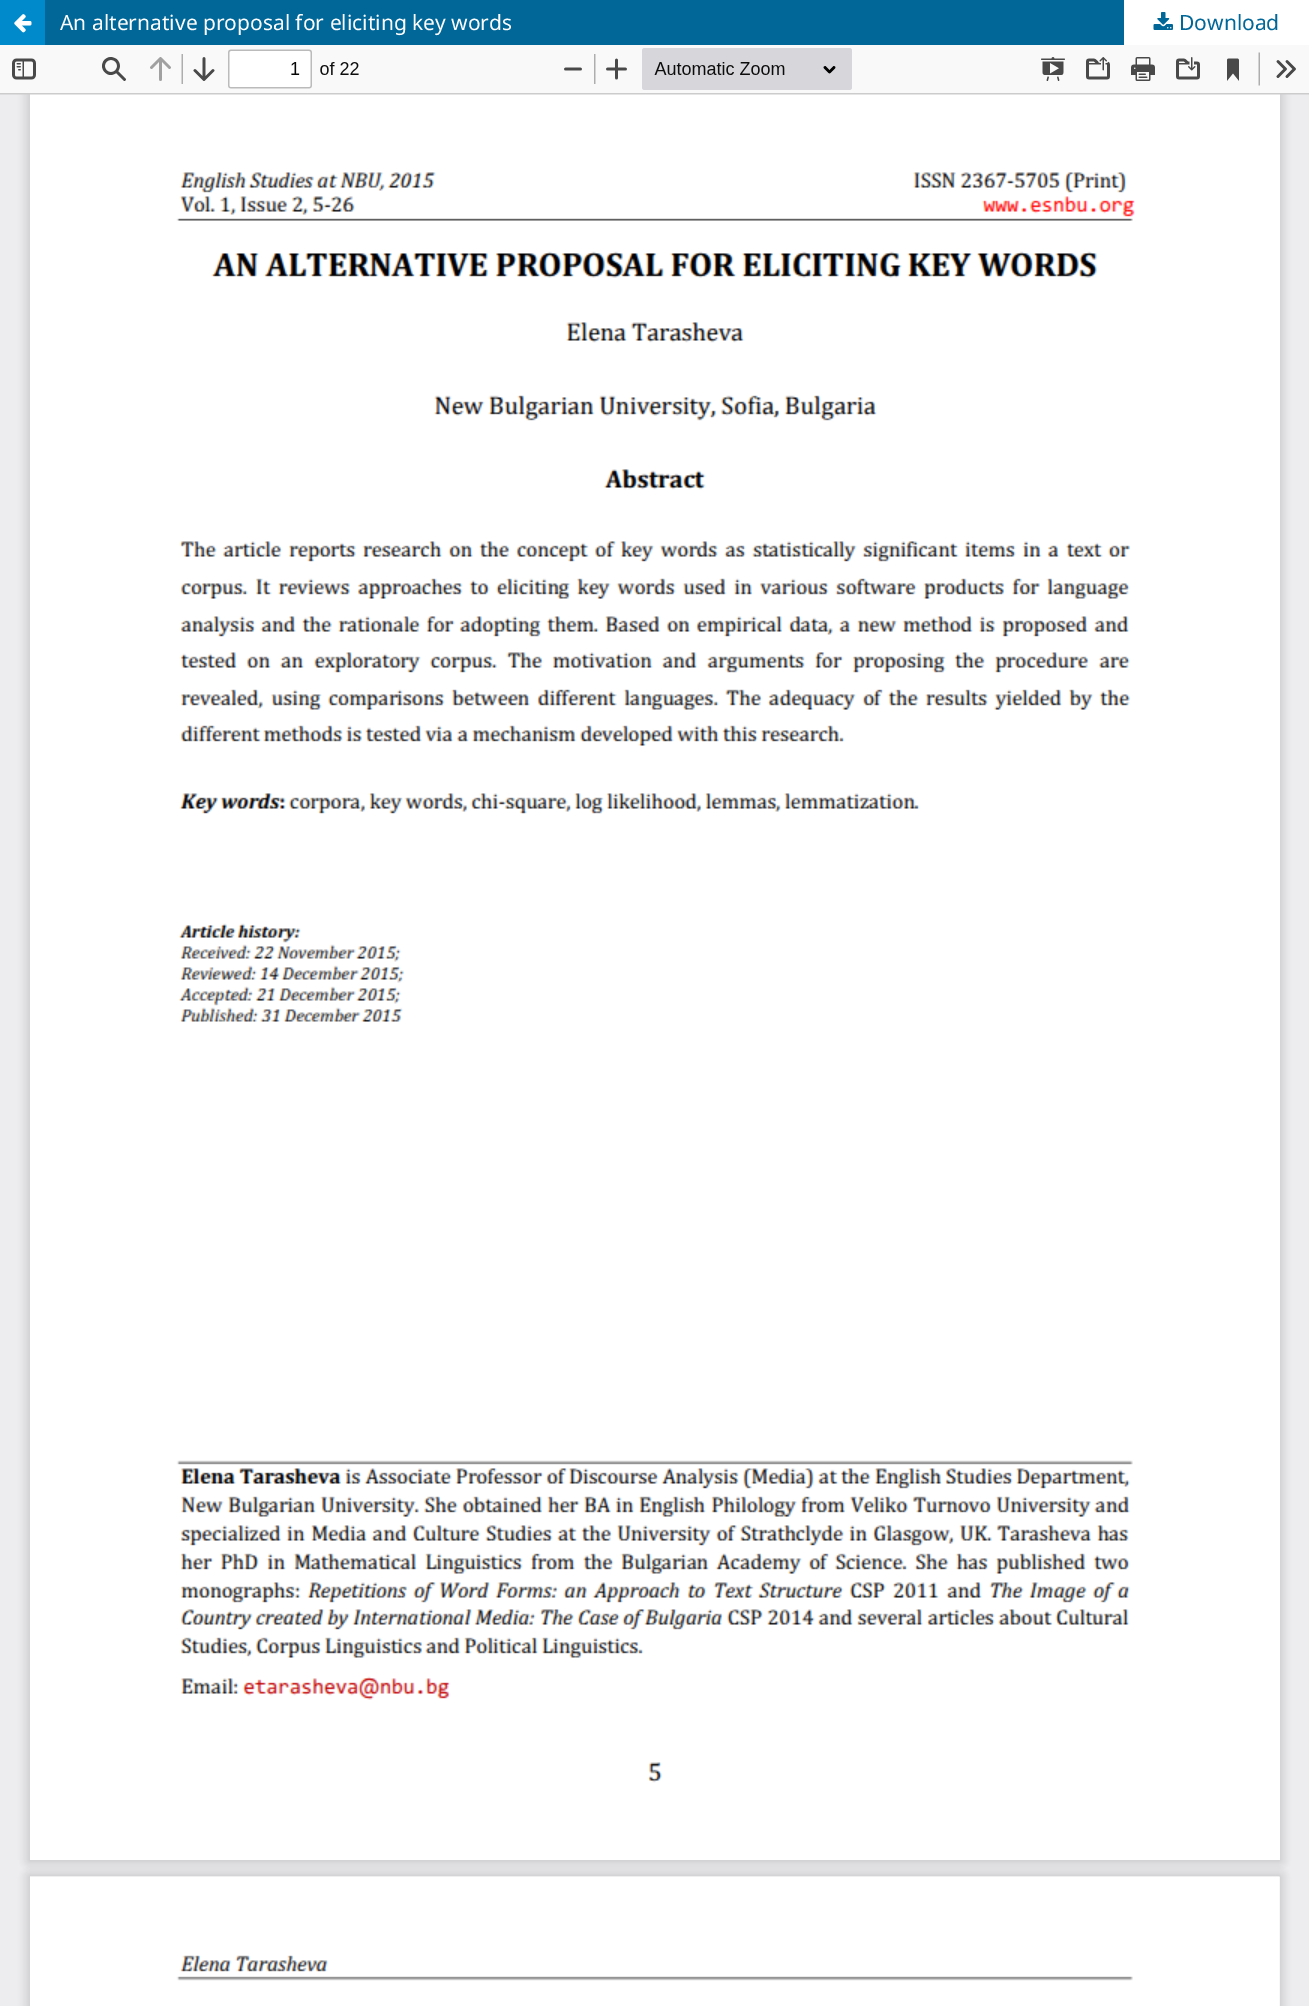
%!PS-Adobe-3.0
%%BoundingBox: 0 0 1309 2006
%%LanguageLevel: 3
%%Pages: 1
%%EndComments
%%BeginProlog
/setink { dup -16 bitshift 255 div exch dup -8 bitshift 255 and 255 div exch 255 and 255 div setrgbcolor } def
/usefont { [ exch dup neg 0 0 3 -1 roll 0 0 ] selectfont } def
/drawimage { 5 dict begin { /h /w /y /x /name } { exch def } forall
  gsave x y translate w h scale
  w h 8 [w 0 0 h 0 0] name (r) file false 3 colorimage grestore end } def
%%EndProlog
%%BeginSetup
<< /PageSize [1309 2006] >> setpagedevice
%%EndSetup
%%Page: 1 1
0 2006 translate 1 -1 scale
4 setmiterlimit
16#FFFFFF setink
0 0 1309 2006 rectfill
16#006798 setink
45 0 1079 45 rectfill
16#008ACB setink
0 0 45 45 rectfill
(img1.raw) 14 14 18 19 drawimage
/NotoSans-Regular 21 usefont
16#FFFFFF setink
60 30 moveto (An alternative proposal for eliciting key words) show
(img2.raw) 1153 12 20 18 drawimage
16#006798 setink
1179 30 moveto (Download) show
(img3.raw) 0 45 1309 1961 drawimage
showpage
%%EOF
